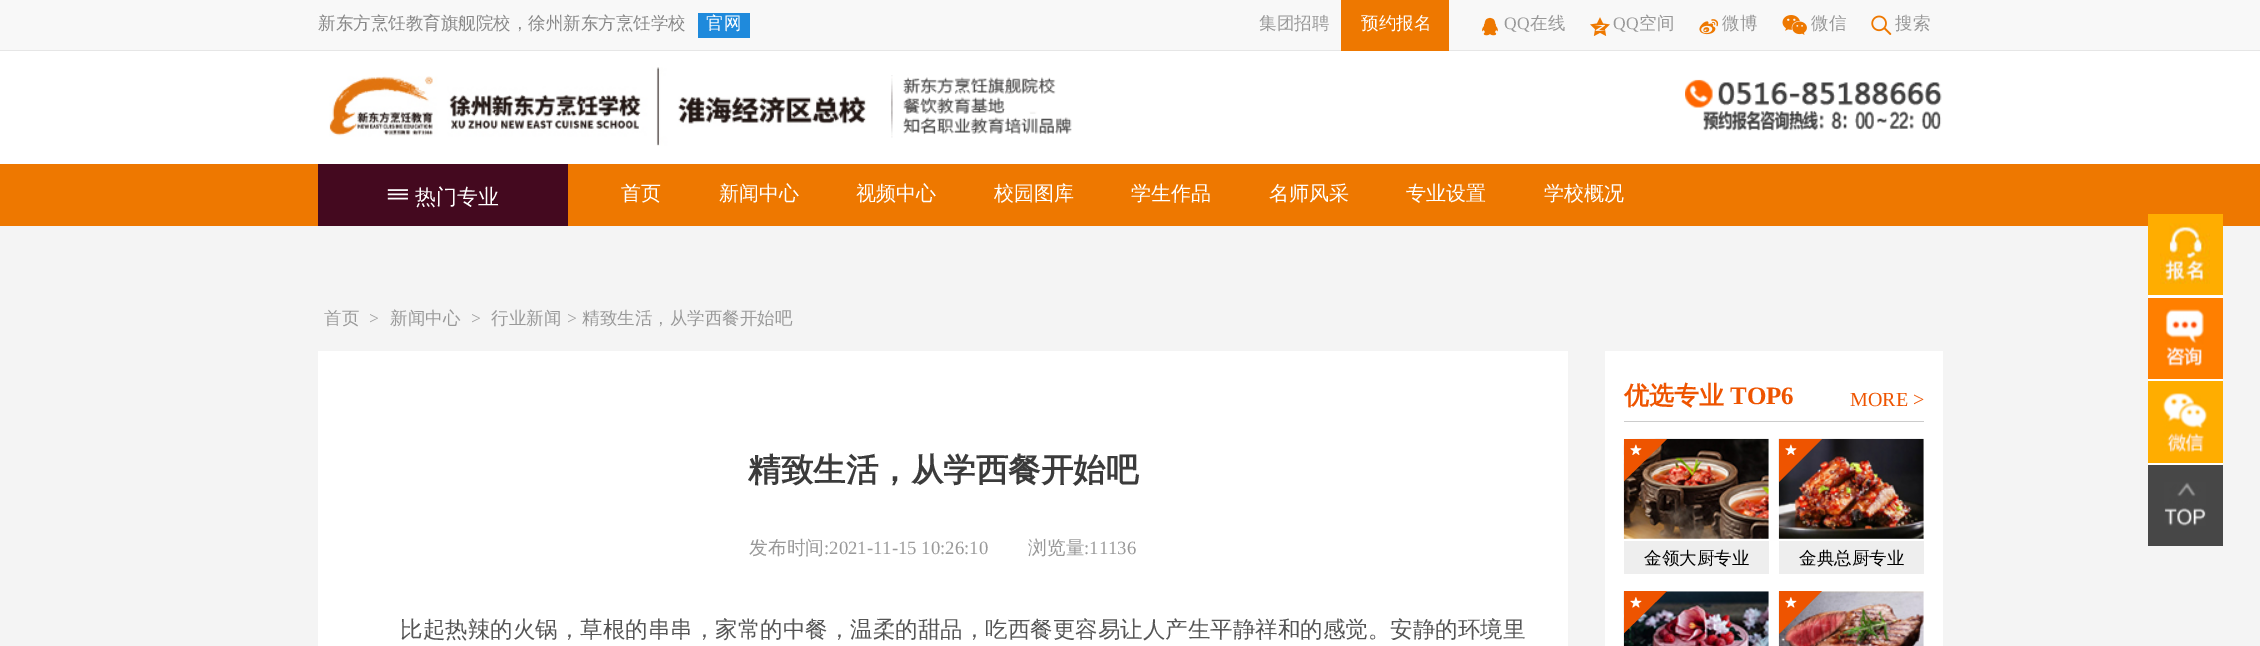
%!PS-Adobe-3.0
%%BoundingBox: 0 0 2260 646
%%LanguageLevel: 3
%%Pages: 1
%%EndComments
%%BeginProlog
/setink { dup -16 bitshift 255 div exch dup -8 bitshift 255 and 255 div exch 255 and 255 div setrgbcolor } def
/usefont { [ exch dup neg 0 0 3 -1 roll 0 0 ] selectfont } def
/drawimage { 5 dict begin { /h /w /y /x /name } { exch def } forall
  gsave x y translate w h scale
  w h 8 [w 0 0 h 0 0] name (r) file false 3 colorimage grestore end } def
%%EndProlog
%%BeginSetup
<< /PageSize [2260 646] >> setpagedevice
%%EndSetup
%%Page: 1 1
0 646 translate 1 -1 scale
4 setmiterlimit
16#F4F4F4 setink
0 0 2260 646 rectfill
[
    [0 51 2260 113 16#FFFFFF]
    [0 0 2260 50 16#F8F8F8]
    [0 50 2260 1 16#E6E6E6]
] { aload pop setink rectfill } forall
/WenQuanYiZenHei-Medium 17.5 usefont
16#888888 setink
318 29 moveto (新东方烹饪教育旗舰院校，徐州新东方烹饪学校) show
16#1F8ADC setink
698 13 52 25 rectfill
16#FFFFFF setink
706 29 moveto (官网) show
16#999999 setink
1259 29 moveto (集团招聘) show
16#EE7800 setink
1341 0 108 51 rectfill
16#FFFFFF setink
1361 29 moveto (预约报名) show
(img1.raw) 1482 17 16 19 drawimage
/LiberationSerif-Regular 17.5 usefont
16#999999 setink
1504 29 moveto (QQ) show
/WenQuanYiZenHei-Medium 17.5 usefont
1530 29 moveto (在线) show
(img2.raw) 1590 17 20 19 drawimage
/LiberationSerif-Regular 17.5 usefont
1613 29 moveto (QQ) show
/WenQuanYiZenHei-Medium 17.5 usefont
1639 29 moveto (空间) show
(img3.raw) 1699 19 20 16 drawimage
1722 29 moveto (微博) show
(img4.raw) 1782 15 25 20 drawimage
1811 29 moveto (微信) show
(img5.raw) 1871 15 21 20 drawimage
1895 29 moveto (搜索) show
(img6.raw) 329 67 537 79 drawimage
(img7.raw) 891 75 181 63 drawimage
(img8.raw) 1685 79 257 52 drawimage
16#EE7800 setink
0 164 2260 62 rectfill
16#44091F setink
318 164 250 62 rectfill
(img9.raw) 387 189 21 11 drawimage
/WenQuanYiZenHei-Medium 21 usefont
16#FFFFFF setink
415 204 moveto (热门专业) show
/WenQuanYiZenHei-Medium 20 usefont
[
    [(首页) 621 200]
    [(新闻中心) 719 200]
    [(视频中心) 856 200]
    [(校园图库) 994 200]
    [(学生作品) 1131 200]
    [(名师风采) 1269 200]
    [(专业设置) 1406 200]
    [(学校概况) 1544 200]
] { aload pop moveto show } forall
/WenQuanYiZenHei-Medium 17.5 usefont
16#999999 setink
324 324 moveto (首页) show
/LiberationSerif-Regular 17.5 usefont
369 324 moveto (>) show
/WenQuanYiZenHei-Medium 17.5 usefont
390 324 moveto (新闻中心) show
/LiberationSerif-Regular 17.5 usefont
471 324 moveto (>) show
/WenQuanYiZenHei-Medium 17.5 usefont
491 324 moveto (行业新闻) show
/LiberationSerif-Regular 17.5 usefont
567 324 moveto (>) show
/WenQuanYiZenHei-Medium 17.5 usefont
582 324 moveto (精致生活，从学西餐开始吧) show
16#FFFFFF setink
318 351 1250 295 rectfill
/WenQuanYiZenHei-Bold 32.5 usefont
16#3B3B3B setink
748 481 moveto (精致生活，从学西餐开始吧) show
/WenQuanYiZenHei-Medium 18.75 usefont
16#999999 setink
749 554 moveto (发布时间) show
/LiberationSerif-Regular 18.75 usefont
824 554 moveto (:2021-11-15 10:26:10) show
/WenQuanYiZenHei-Medium 18.75 usefont
1028 554 moveto (浏览量) show
/LiberationSerif-Regular 18.75 usefont
1084 554 moveto (:11136) show
/WenQuanYiZenHei-Medium 22.5 usefont
16#555555 setink
400 637 moveto (比起热辣的火锅，草根的串串，家常的中餐，温柔的甜品，吃西餐更容易让人产生平静祥和的感觉。安静的环境里) show
16#FFFFFF setink
1605 351 338 295 rectfill
16#CCCCCC setink
1624 421 300 1 rectfill
/WenQuanYiZenHei-Bold 25 usefont
16#EE5400 setink
1624 404 moveto (优选专业) show
/LiberationSerif-Bold 25 usefont
1730 404 moveto (TOP6) show
/LiberationSerif-Regular 20 usefont
1850 406 moveto (MORE >) show
(img10.raw) 1623 438 146 101 drawimage
gsave
1624 439 145 135 rectclip
1578 439 moveto 1622 395 lineto 1667 439 lineto 1622 483 lineto closepath fill
grestore
(img11.raw) 1630 444 12 11 drawimage
16#EEEEEE setink
1624 541 145 33 rectfill
/WenQuanYiZenHei-Medium 17.5 usefont
16#010101 setink
1644 564 moveto (金领大厨专业) show
(img12.raw) 1778 438 146 101 drawimage
gsave
1779 439 145 135 rectclip
16#EE5400 setink
1733 439 moveto 1778 395 lineto 1822 439 lineto 1778 483 lineto closepath fill
grestore
(img11.raw) 1785 444 12 11 drawimage
16#EEEEEE setink
1779 541 145 33 rectfill
16#010101 setink
1799 564 moveto (金典总厨专业) show
(img13.raw) 1623 591 146 55 drawimage
gsave
1624 591 145 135 rectclip
16#EE5400 setink
1578 591 moveto 1622 547 lineto 1667 591 lineto 1622 635 lineto closepath fill
grestore
(img14.raw) 1630 597 12 11 drawimage
(img15.raw) 1778 591 146 55 drawimage
gsave
1779 591 145 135 rectclip
16#EE5400 setink
1733 591 moveto 1778 547 lineto 1822 591 lineto 1778 635 lineto closepath fill
grestore
(img14.raw) 1785 597 12 11 drawimage
16#FFAD00 setink
2148 214 75 81 rectfill
16#FFFFFF setink
2148 295 75 3 rectfill
(img16.raw) 2160 223 50 61 drawimage
16#FF7F00 setink
2148 298 75 81 rectfill
16#FFFFFF setink
2148 379 75 2 rectfill
(img17.raw) 2165 309 39 57 drawimage
16#FFAD00 setink
2148 381 75 82 rectfill
16#FFFFFF setink
2148 463 75 2 rectfill
(img18.raw) 2162 393 46 59 drawimage
16#474747 setink
2148 465 75 81 rectfill
(img19.raw) 2164 482 42 44 drawimage
showpage
%%EOF
